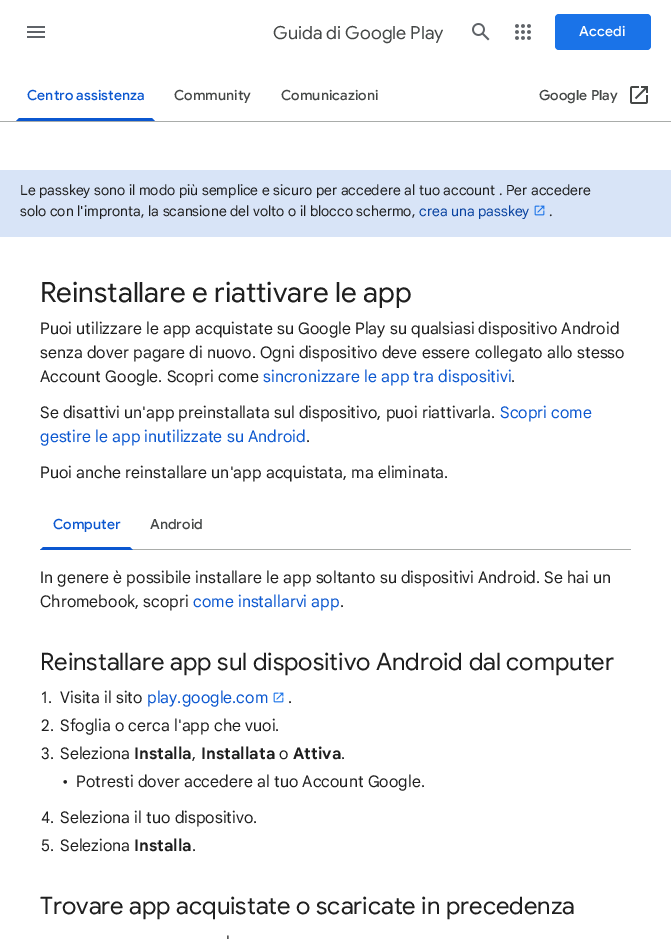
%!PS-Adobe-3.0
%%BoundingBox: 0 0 671 943
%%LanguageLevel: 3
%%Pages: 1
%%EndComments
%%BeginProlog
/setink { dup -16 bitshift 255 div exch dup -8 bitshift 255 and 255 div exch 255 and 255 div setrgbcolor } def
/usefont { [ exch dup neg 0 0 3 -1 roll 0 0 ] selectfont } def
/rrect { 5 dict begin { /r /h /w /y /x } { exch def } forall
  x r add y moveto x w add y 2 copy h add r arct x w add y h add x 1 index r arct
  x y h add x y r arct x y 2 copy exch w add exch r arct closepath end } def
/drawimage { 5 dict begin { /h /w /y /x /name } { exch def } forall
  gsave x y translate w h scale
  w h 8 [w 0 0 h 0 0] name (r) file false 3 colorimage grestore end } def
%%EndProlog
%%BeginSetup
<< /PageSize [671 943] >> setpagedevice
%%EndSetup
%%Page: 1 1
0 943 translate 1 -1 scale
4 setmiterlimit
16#FFFFFF setink
0 0 671 943 rectfill
(img1.raw) 27 26 18 12 drawimage
/GoogleSans-Regular 18 usefont
16#444746 setink
273 39 moveto (Guida di Google Play) show
(img2.raw) 472 23 18 18 drawimage
(img3.raw) 515 24 16 16 drawimage
16#1A73E8 setink
555 14 96 36 4 rrect fill
/GoogleSans-Medium 14 usefont
16#FFFFFF setink
579 36 moveto 0.25 0 (Accedi) ashow
16#A9ACAA setink
0 121 671 1 rectfill
16#0B57D0 setink
155 121 moveto 16 121 lineto 19 118 lineto 152 118 lineto closepath fill
27 100 moveto (Centro assistenza) show
16#444746 setink
[
    [(Community) 174 100]
    [(Comunicazioni) 281 100]
    [(Google Play) 539 100]
] { aload pop moveto show } forall
(img4.raw) 630 86 18 18 drawimage
16#D8E4F7 setink
0 170 671 67 rectfill
/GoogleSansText-Regular 14 usefont
16#1F1F1F setink
20 195 moveto (Le passkey sono il modo più semplice e sicuro per accedere al tuo account . Per accedere) show
20 216 moveto (solo con l'impronta, la scansione del volto o il blocco schermo,) show
16#0842A0 setink
419 216 moveto (crea una passkey) show
(img5.raw) 534 205 11 11 drawimage
16#1F1F1F setink
549 216 moveto (.) show
/GoogleSans-Regular 28 usefont
40 302 moveto (Reinstallare e riattivare le app) show
/GoogleSansText-Regular 16 usefont
40 334 moveto 0.08 0 (Puoi utilizzare le app acquistate su Google Play su qualsiasi dispositivo Android) ashow
40 358 moveto 0.08 0 (senza dover pagare di nuovo. Ogni dispositivo deve essere collegato allo stesso) ashow
40 382 moveto 0.08 0 (Account Google. Scopri come) ashow
16#0B57D0 setink
263 382 moveto 0.08 0 (sincronizzare le app tra dispositivi) ashow
16#1F1F1F setink
511 382 moveto 0.08 0 (.) ashow
40 418 moveto 0.08 0 (Se disattivi un'app preinstallata sul dispositivo, puoi riattivarla.) ashow
16#0B57D0 setink
500 418 moveto 0.08 0 (Scopri come) ashow
40 442 moveto 0.08 0 (gestire le app inutilizzate su Android) ashow
16#1F1F1F setink
306 442 moveto 0.08 0 (.) ashow
40 478 moveto 0.08 0 (Puoi anche reinstallare un'app acquistata, ma eliminata.) ashow
16#A9ACAA setink
40 549 591 1 rectfill
16#0B57D0 setink
133 550 moveto 40 550 lineto 43 547 lineto 130 547 lineto closepath fill
/GoogleSans-Medium 14 usefont
53 529 moveto (Computer) show
16#444746 setink
150 529 moveto (Android) show
/GoogleSansText-Regular 16 usefont
16#1F1F1F setink
40 583 moveto 0.08 0 (In genere è possibile installare le app soltanto su dispositivi Android. Se hai un) ashow
40 607 moveto 0.08 0 (Chromebook, scopri) ashow
16#0B57D0 setink
193 607 moveto 0.08 0 (come installarvi app) ashow
16#1F1F1F setink
340 607 moveto 0.08 0 (.) ashow
/GoogleSans-Regular 24 usefont
40 670 moveto (Reinstallare app sul dispositivo Android dal computer) show
/GoogleSansText-Regular 16 usefont
41 703 moveto 0.08 0 (1.) ashow
60 703 moveto 0.08 0 (Visita il sito) ashow
16#0B57D0 setink
147 703 moveto 0.08 0 (play.google.com) ashow
(img6.raw) 273 692 11 11 drawimage
16#1F1F1F setink
288 703 moveto 0.08 0 (.) ashow
41 731 moveto 0.08 0 (2.) ashow
60 731 moveto 0.08 0 (Sfoglia o cerca l'app che vuoi.) ashow
41 759 moveto 0.08 0 (3.) ashow
60 759 moveto 0.08 0 (Seleziona) ashow
/GoogleSansText-Bold 16 usefont
134 759 moveto 0.08 0 (Installa) ashow
/GoogleSansText-Regular 16 usefont
192 759 moveto 0.08 0 (,) ashow
/GoogleSansText-Bold 16 usefont
201 759 moveto 0.08 0 (Installata) ashow
/GoogleSansText-Regular 16 usefont
279 759 moveto 0.08 0 (o) ashow
/GoogleSansText-Bold 16 usefont
293 759 moveto 0.08 0 (Attiva) ashow
/GoogleSansText-Regular 16 usefont
341 759 moveto 0.08 0 (.) ashow
62 787 moveto 0.08 0 (•) ashow
76 787 moveto 0.08 0 (Potresti dover accedere al tuo Account Google.) ashow
41 823 moveto 0.08 0 (4.) ashow
60 823 moveto 0.08 0 (Seleziona il tuo dispositivo.) ashow
41 851 moveto 0.08 0 (5.) ashow
60 851 moveto 0.08 0 (Seleziona) ashow
/GoogleSansText-Bold 16 usefont
134 851 moveto 0.08 0 (Installa) ashow
/GoogleSansText-Regular 16 usefont
192 851 moveto 0.08 0 (.) ashow
/GoogleSans-Regular 24 usefont
40 914 moveto (Trovare app acquistate o scaricate in precedenza) show
/GoogleSansText-Regular 16 usefont
226 947 moveto 0.08 0 (') ashow
showpage
%%EOF
